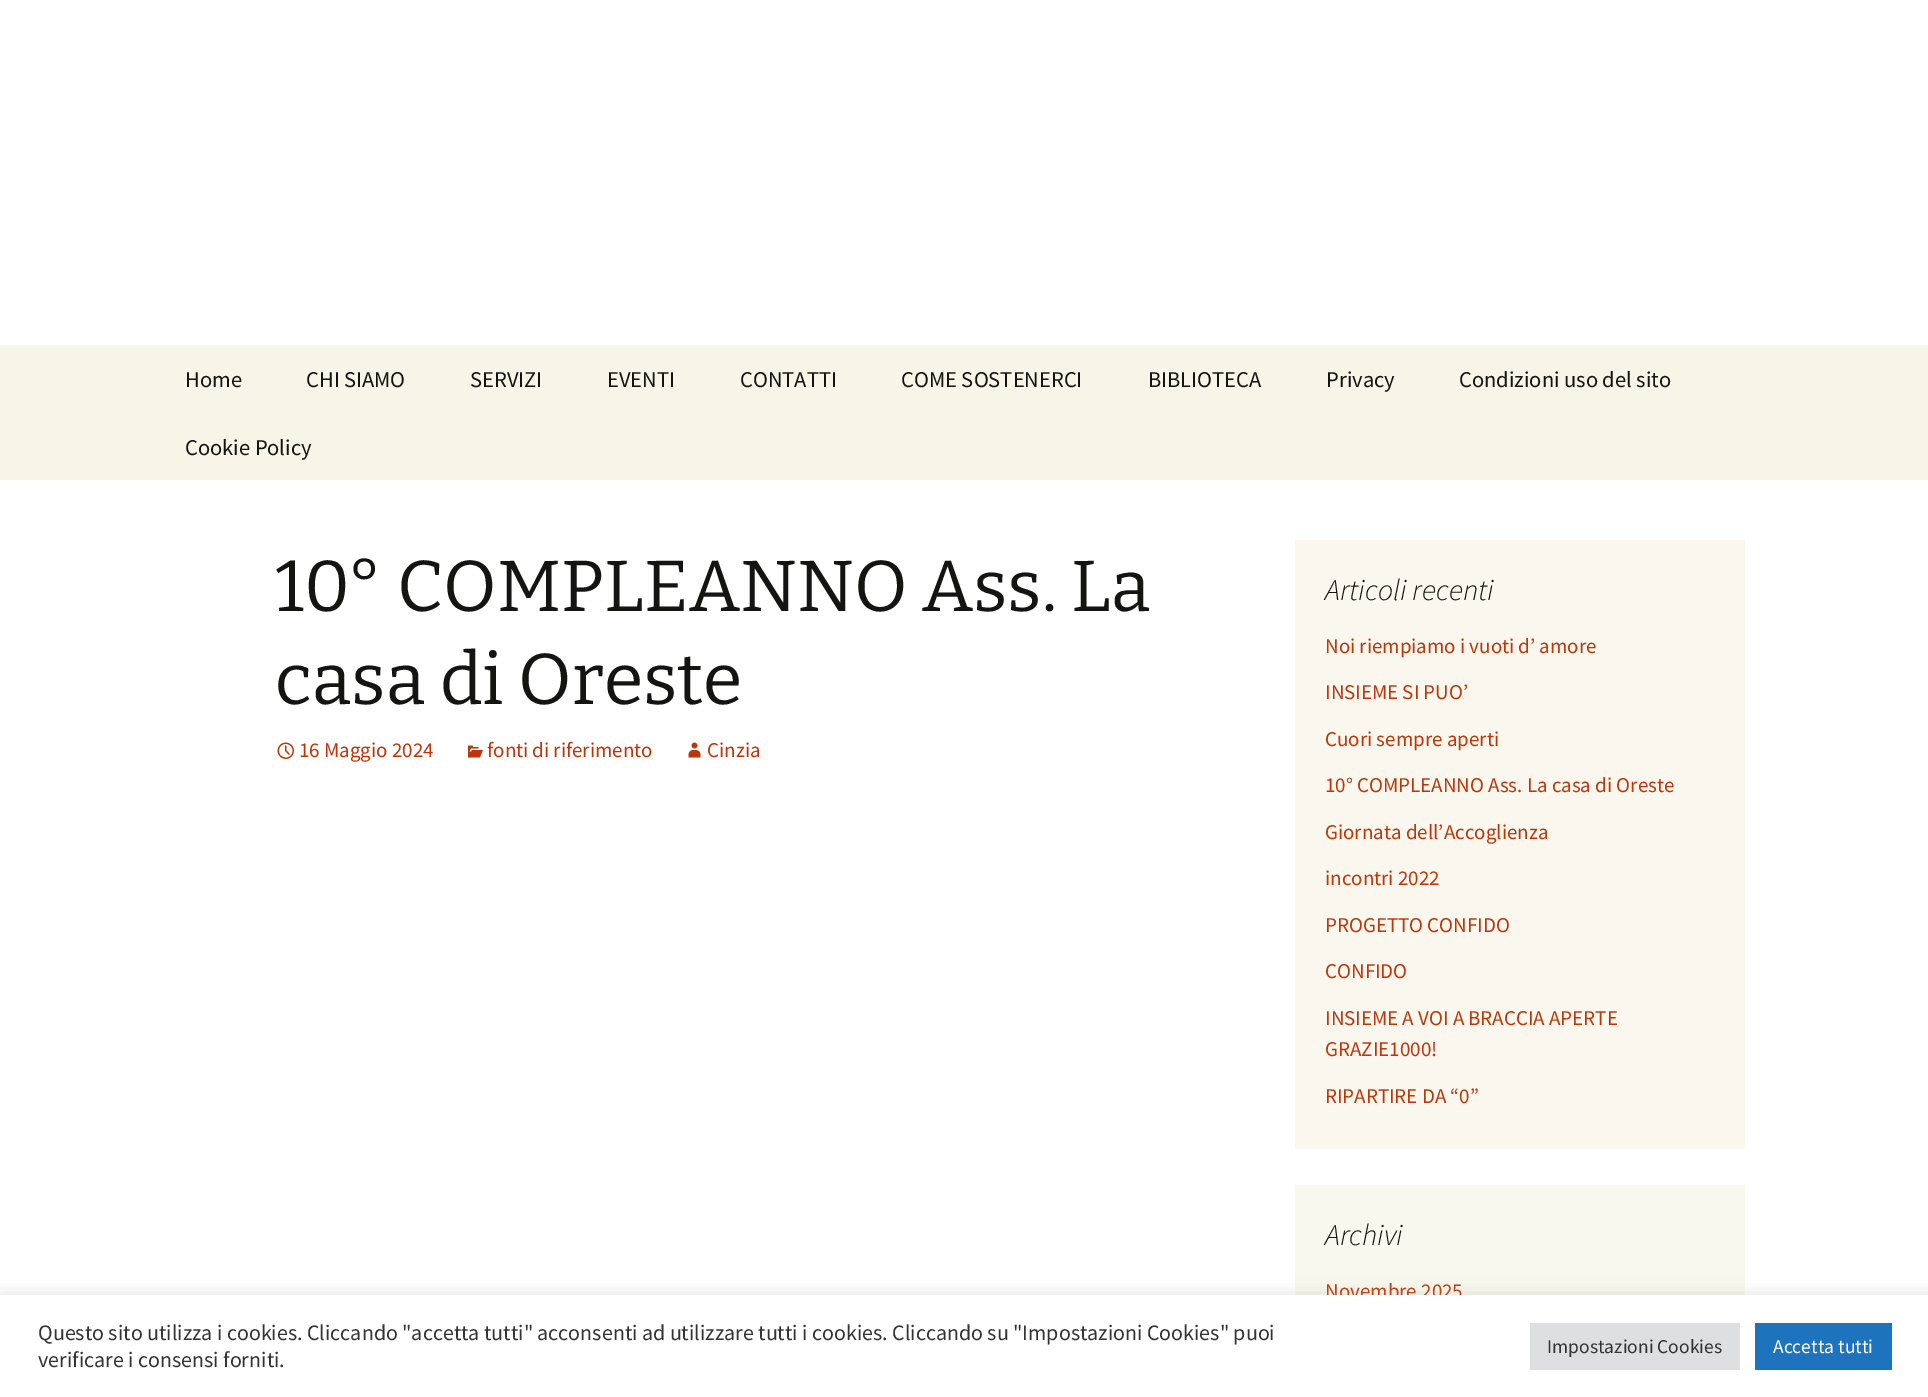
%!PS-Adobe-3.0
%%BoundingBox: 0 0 1928 1397
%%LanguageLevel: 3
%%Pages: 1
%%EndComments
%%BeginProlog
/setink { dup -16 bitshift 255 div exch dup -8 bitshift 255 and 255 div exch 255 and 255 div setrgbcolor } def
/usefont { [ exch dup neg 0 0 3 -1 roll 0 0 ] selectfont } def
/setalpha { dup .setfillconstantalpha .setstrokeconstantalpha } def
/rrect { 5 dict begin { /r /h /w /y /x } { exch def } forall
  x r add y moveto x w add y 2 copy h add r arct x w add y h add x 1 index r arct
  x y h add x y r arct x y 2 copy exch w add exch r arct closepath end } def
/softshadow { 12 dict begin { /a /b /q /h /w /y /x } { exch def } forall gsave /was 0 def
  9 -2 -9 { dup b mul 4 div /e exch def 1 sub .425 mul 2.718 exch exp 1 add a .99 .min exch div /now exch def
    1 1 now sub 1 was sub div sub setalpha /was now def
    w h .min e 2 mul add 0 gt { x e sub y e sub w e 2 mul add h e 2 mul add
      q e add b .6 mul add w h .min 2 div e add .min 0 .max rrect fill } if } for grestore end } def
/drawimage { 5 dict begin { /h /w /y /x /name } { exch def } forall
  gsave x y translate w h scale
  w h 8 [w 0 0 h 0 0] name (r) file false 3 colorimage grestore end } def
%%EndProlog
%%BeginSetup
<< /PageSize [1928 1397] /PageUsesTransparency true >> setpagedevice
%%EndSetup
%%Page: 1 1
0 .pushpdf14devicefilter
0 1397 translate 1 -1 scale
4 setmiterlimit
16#FFFFFF setink
0 0 1928 1397 rectfill
16#F7F5E7 setink
0 345 1928 135 rectfill
/SourceSansPro-Regular 22.5 usefont
16#141412 setink
[
    [(Home) 185 387]
    [(CHI SIAMO) 306 387]
    [(SERVIZI) 470 387]
    [(EVENTI) 607 387]
    [(CONTATTI) 740 387]
    [(COME SOSTENERCI) 901 387]
    [(BIBLIOTECA) 1148 387]
    [(Privacy) 1326 387]
    [(Condizioni uso del sito) 1459 387]
    [(Cookie Policy) 185 455]
] { aload pop moveto show } forall
/Bitter-Regular 72 usefont
275 611 moveto (10° COMPLEANNO Ass. La) show
275 704 moveto (casa di Oreste) show
(img1.raw) 277 742 17 17 drawimage
/SourceSansPro-Regular 21 usefont
16#BC360A setink
299 757 moveto (16 Maggio 2024) show
(img2.raw) 468 745 15 13 drawimage
487 757 moveto (fonti di riferimento) show
(img3.raw) 688 742 13 16 drawimage
707 757 moveto (Cinzia) show
16#FAF8EE setink
1295 540 450 609 rectfill
/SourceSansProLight-LightItalic 30 usefont
16#141412 setink
1325 600 moveto (Articoli recenti) show
/SourceSansPro-Regular 21 usefont
16#BC360A setink
[
    [(Noi riempiamo i vuoti d’ amore) 1325 653]
    [(INSIEME SI PUO’) 1325 699]
    [(Cuori sempre aperti) 1325 746]
    [(10° COMPLEANNO Ass. La casa di Oreste) 1325 792]
    [(Giornata dell’Accoglienza) 1325 839]
    [(incontri 2022) 1325 885]
    [(PROGETTO CONFIDO) 1325 932]
    [(CONFIDO) 1325 978]
    [(INSIEME A VOI A BRACCIA APERTE) 1325 1025]
    [(GRAZIE1000!) 1325 1056]
    [(RIPARTIRE DA “0”) 1325 1103]
] { aload pop moveto show } forall
16#F9F8EE setink
1295 1185 450 110 rectfill
/SourceSansProLight-LightItalic 30 usefont
16#141412 setink
1325 1245 moveto (Archivi) show
/SourceSansPro-Regular 21 usefont
16#BC360A setink
1325 1298 moveto (Novembre 2025) show
16#ACABAB setink
0 1293 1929 104 0 7.5 0.3 softshadow
16#FFFFFF setink
0 1295 1928 102 rectfill
/SourceSansPro-Regular 22 usefont
16#333333 setink
38 1340 moveto (Questo sito utilizza i cookies. Cliccando "accetta tutti" acconsenti ad utilizzare tutti i cookies. Cliccando su "Impostazioni Cookies" puoi) show
38 1367 moveto (verificare i consensi forniti.) show
16#DEDFE0 setink
1530 1323 210 47 rectfill
/SourceSansPro-Regular 19.5 usefont
16#333333 setink
1547 1353 moveto (Impostazioni Cookies) show
16#1E73BE setink
1755 1323 137 47 rectfill
16#FFFFFF setink
1773 1353 moveto (Accetta tutti) show
.poppdf14devicefilter showpage
%%EOF
